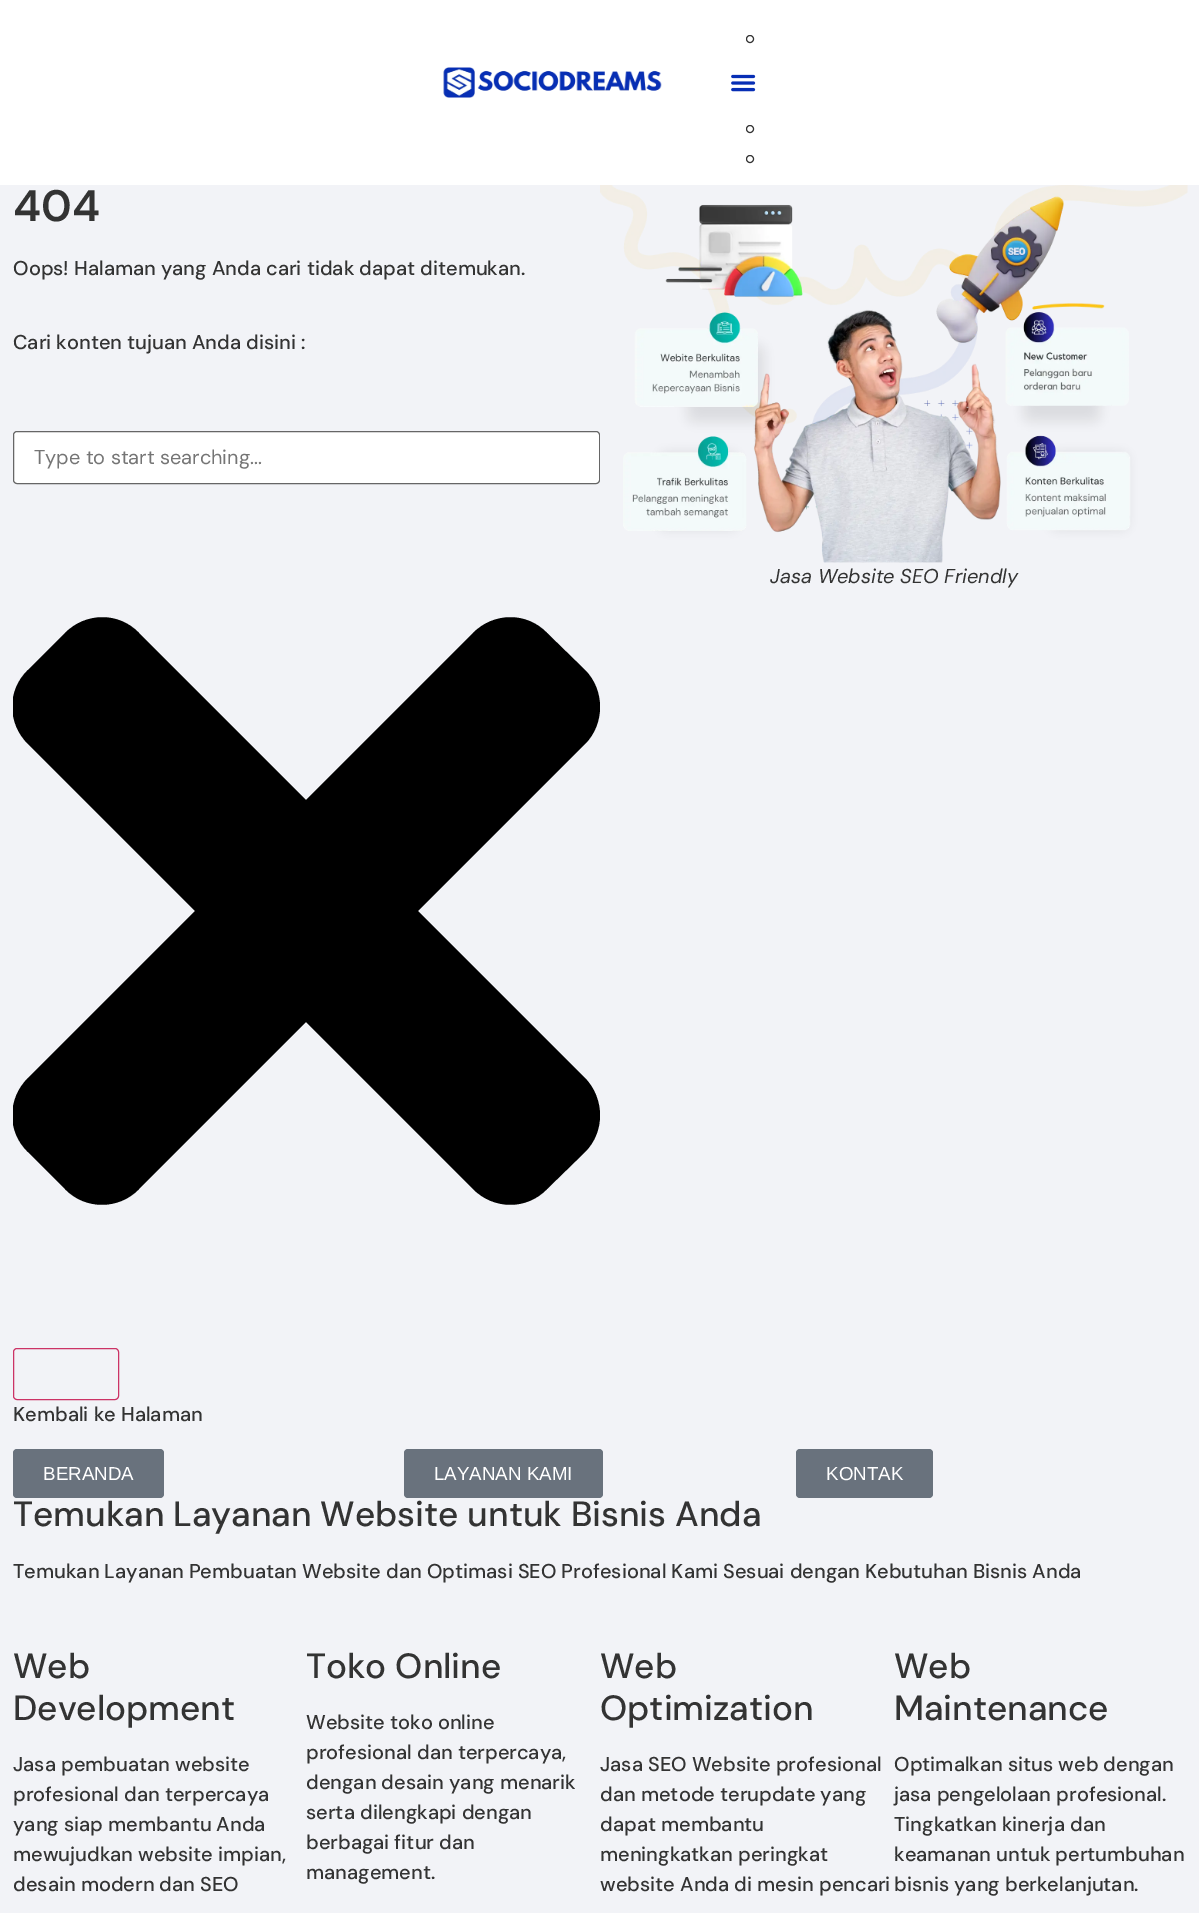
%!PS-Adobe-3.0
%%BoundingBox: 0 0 1199 1913
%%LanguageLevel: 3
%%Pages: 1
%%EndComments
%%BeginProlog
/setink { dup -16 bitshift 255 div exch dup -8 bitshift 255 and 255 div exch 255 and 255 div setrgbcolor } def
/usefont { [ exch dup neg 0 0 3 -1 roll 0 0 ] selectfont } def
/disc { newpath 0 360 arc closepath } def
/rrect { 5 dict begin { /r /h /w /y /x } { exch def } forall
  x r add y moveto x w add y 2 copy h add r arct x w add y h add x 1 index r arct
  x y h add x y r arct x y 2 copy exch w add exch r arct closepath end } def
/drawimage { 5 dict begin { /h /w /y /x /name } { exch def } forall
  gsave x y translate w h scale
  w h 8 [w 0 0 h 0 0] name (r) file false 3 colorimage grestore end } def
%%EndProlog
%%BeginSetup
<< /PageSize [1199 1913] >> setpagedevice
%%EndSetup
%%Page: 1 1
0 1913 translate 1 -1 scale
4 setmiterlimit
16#F2F3F7 setink
0 0 1199 1913 rectfill
16#FFFFFF setink
0 0 1199 185 rectfill
(img1.raw) 443 67 219 31 drawimage
16#333333 setink
750 39 3.5 disc stroke
750 129 3.5 disc stroke
750 159 3.5 disc stroke
(img2.raw) 731 74 25 18 drawimage
/DMSans-SemiBold 44 usefont
13 221 moveto (404) show
/DMSans-Medium 20 usefont
13 275 moveto (Oops! Halaman yang Anda cari tidak dapat ditemukan.) show
13 349 moveto (Cari konten tujuan Anda disini :) show
16#FFFFFF setink
13.5 431.5 586 52 3.5 rrect gsave fill grestore
16#666666 setink
stroke
/DMSans-Regular 20 usefont
16#757575 setink
34 464 moveto (Type to start searching...) show
gsave
13 484 587 855 rectclip
16#000000 setink
418 911 moveto 585 744 lineto 605 724 605 690 585 670 curveto 547 633 lineto 527 612 494 612 473 633 curveto 306 800 lineto 139 633 lineto 119 612 86 612 65 633 curveto 28 670 lineto 7 690 7 723 28 744 curveto 195 911 lineto 28 1078 lineto 7 1099 7 1132 28 1152 curveto 65 1189 lineto 85 1210 119 1210 139 1189 curveto 306 1022 lineto 473 1189 lineto 494 1210 527 1210 547 1189 curveto 585 1152 lineto 605 1132 605 1099 585 1078 curveto closepath fill
grestore
16#CC3366 setink
13.5 1348.5 105 51 3.5 rrect stroke
(img3.raw) 600 185 588 378 drawimage
/DMSans-Italic 20 usefont
16#333333 setink
770 583 moveto (Jasa Website SEO Friendly) show
/DMSans-Medium 20 usefont
13 1421 moveto (Kembali ke Halaman) show
16#69727D setink
13 1449 151 49 4 rrect fill
/LiberationSans-Regular 18.75 usefont
16#FFFFFF setink
43 1480 moveto (BERANDA) show
16#69727D setink
404 1449 199 49 4 rrect fill
16#FFFFFF setink
434 1480 moveto (LAYANAN KAMI) show
16#69727D setink
796 1449 137 49 4 rrect fill
16#FFFFFF setink
826 1480 moveto (KONTAK) show
/DMSans-Medium 35 usefont
16#333333 setink
13 1526 moveto (Temukan Layanan Website untuk Bisnis Anda) show
/DMSans-Medium 20 usefont
13 1578 moveto (Temukan Layanan Pembuatan Website dan Optimasi SEO Profesional Kami Sesuai dengan Kebutuhan Bisnis Anda) show
/DMSans-Medium 35 usefont
13 1678 moveto (Web) show
13 1720 moveto (Development) show
/DMSans-Medium 20 usefont
[
    [(Jasa pembuatan website) 13 1771]
    [(profesional dan terpercaya) 13 1801]
    [(yang siap membantu Anda) 13 1831]
    [(mewujudkan website impian,) 13 1861]
    [(desain modern dan SEO) 13 1891]
] { aload pop moveto show } forall
/DMSans-Medium 35 usefont
306 1678 moveto (Toko Online) show
/DMSans-Medium 20 usefont
[
    [(Website toko online) 306 1729]
    [(profesional dan terpercaya,) 306 1759]
    [(dengan desain yang menarik) 306 1789]
    [(serta dilengkapi dengan) 306 1819]
    [(berbagai fitur dan) 306 1849]
    [(management.) 306 1879]
] { aload pop moveto show } forall
/DMSans-Medium 35 usefont
600 1678 moveto (Web) show
600 1720 moveto (Optimization) show
/DMSans-Medium 20 usefont
[
    [(Jasa SEO Website profesional) 600 1771]
    [(dan metode terupdate yang) 600 1801]
    [(dapat membantu) 600 1831]
    [(meningkatkan peringkat) 600 1861]
    [(website Anda di mesin pencari) 600 1891]
] { aload pop moveto show } forall
/DMSans-Medium 35 usefont
894 1678 moveto (Web) show
894 1720 moveto (Maintenance) show
/DMSans-Medium 20 usefont
[
    [(Optimalkan situs web dengan) 894 1771]
    [(jasa pengelolaan profesional.) 894 1801]
    [(Tingkatkan kinerja dan) 894 1831]
    [(keamanan untuk pertumbuhan) 894 1861]
    [(bisnis yang berkelanjutan.) 894 1891]
] { aload pop moveto show } forall
showpage
%%EOF
